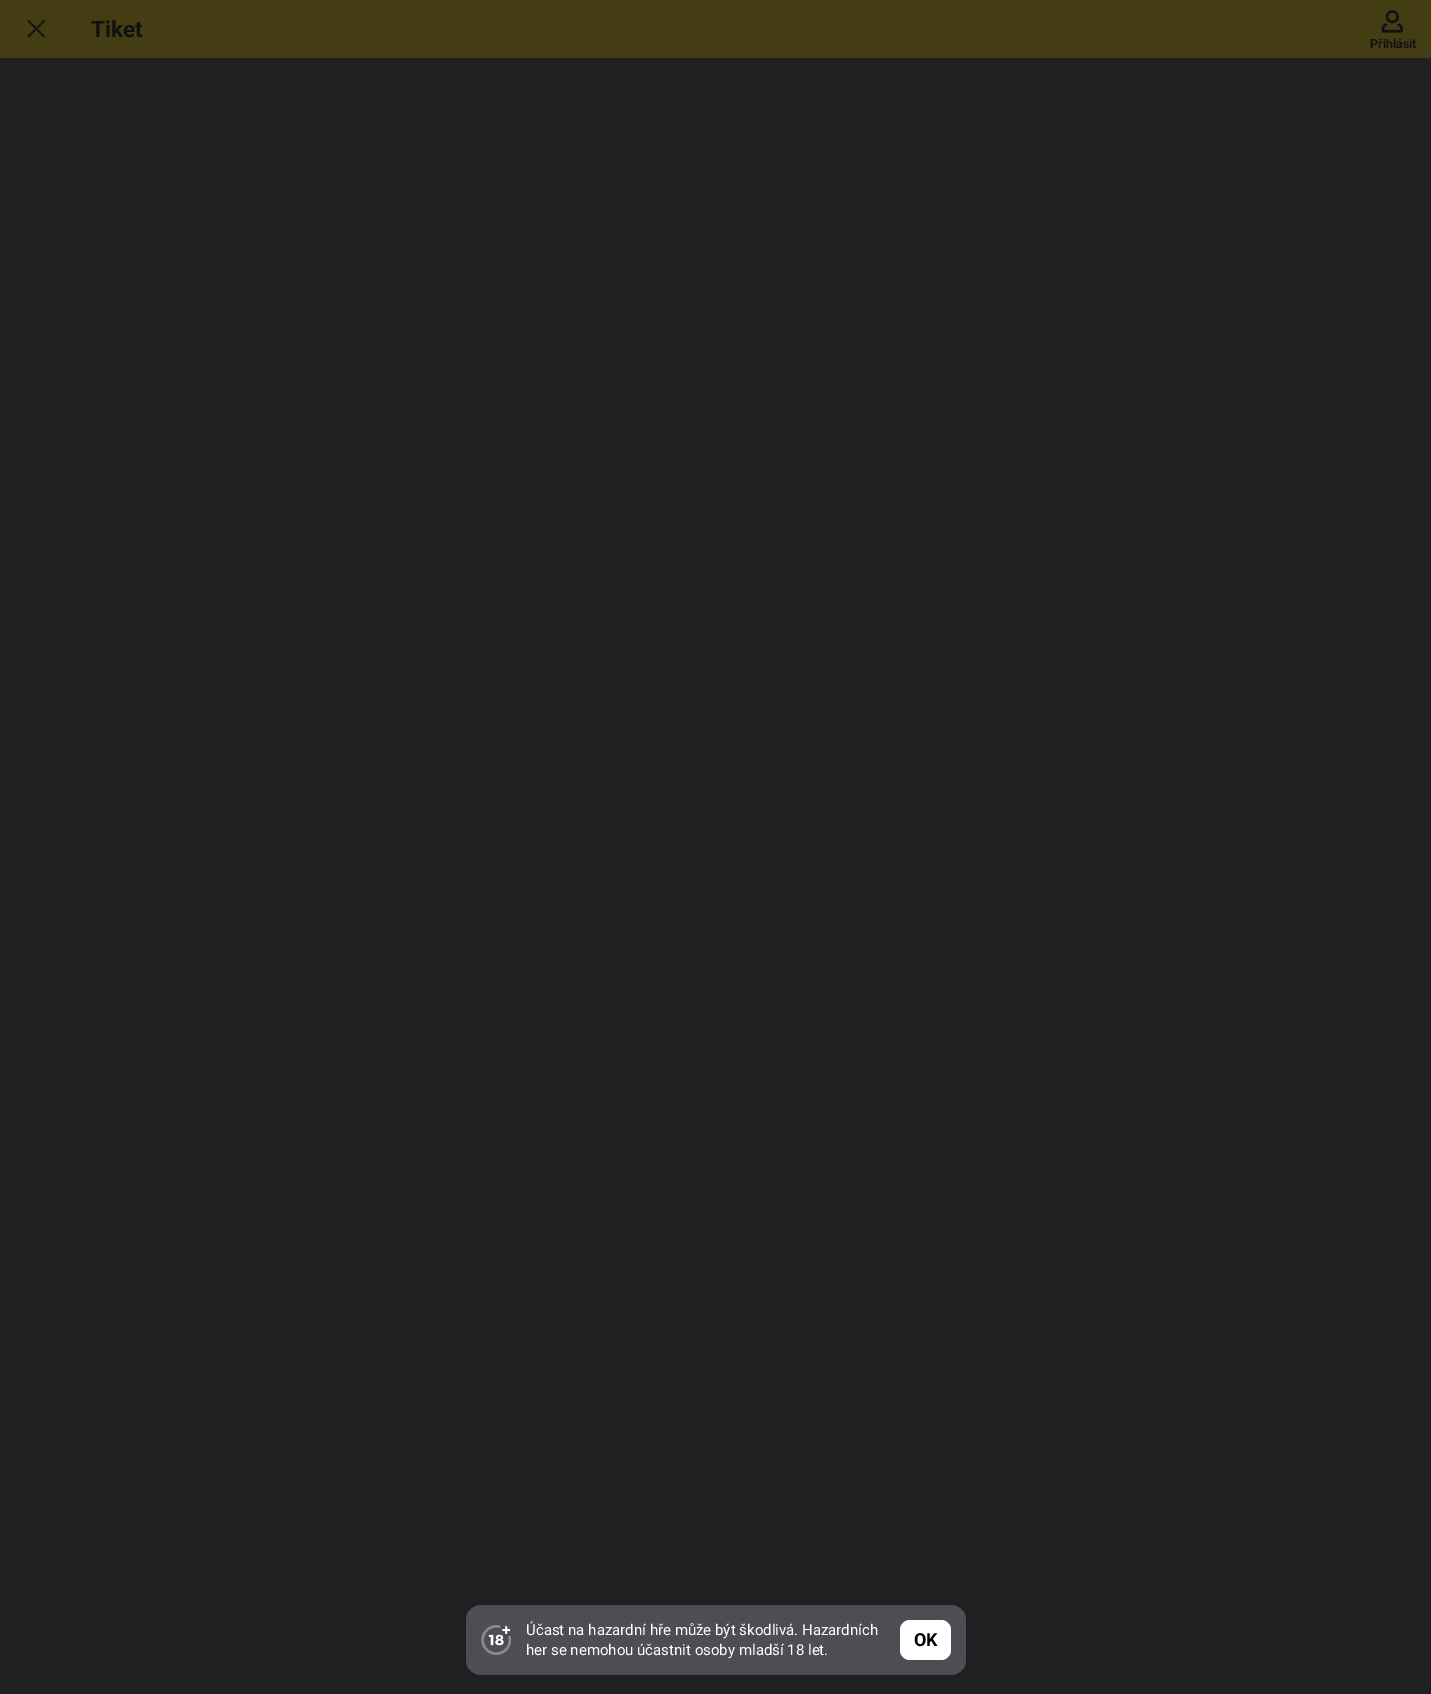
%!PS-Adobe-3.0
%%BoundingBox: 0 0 1431 1694
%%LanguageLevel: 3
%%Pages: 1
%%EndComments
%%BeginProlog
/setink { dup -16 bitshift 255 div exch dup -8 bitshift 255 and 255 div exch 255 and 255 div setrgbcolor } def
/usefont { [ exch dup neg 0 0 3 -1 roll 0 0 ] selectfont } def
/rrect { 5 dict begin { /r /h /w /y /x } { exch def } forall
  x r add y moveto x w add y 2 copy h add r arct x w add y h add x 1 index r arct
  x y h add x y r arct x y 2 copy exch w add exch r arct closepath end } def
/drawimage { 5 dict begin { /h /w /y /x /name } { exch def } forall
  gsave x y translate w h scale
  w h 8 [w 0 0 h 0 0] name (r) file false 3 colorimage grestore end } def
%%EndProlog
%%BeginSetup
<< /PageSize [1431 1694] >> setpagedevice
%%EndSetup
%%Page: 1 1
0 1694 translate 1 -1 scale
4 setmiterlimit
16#202022 setink
0 0 1431 1694 rectfill
16#443D13 setink
0 0 1431 58 rectfill
(img1.raw) 27 20 18 18 drawimage
/Roboto-Bold 22.5 usefont
16#111112 setink
91 37 moveto (Tiket) show
(img2.raw) 1381 10 22 23 drawimage
/Roboto-SemiBold 12.5 usefont
1370 48 moveto (Přihlásit) show
16#4D4D53 setink
466 1605 500 70 15 rrect fill
(img3.raw) 481 1625 30 30 drawimage
/Roboto-Regular 15 usefont
16#FFFFFF setink
526 1635 moveto (Účast na hazardní hře může být škodlivá. Hazardních) show
526 1655 moveto (her se nemohou účastnit osoby mladší 18 let.) show
900 1620 51 40 10 rrect fill
/Roboto-Bold 18 usefont
16#000000 setink
914 1646 moveto (OK) show
showpage
%%EOF
